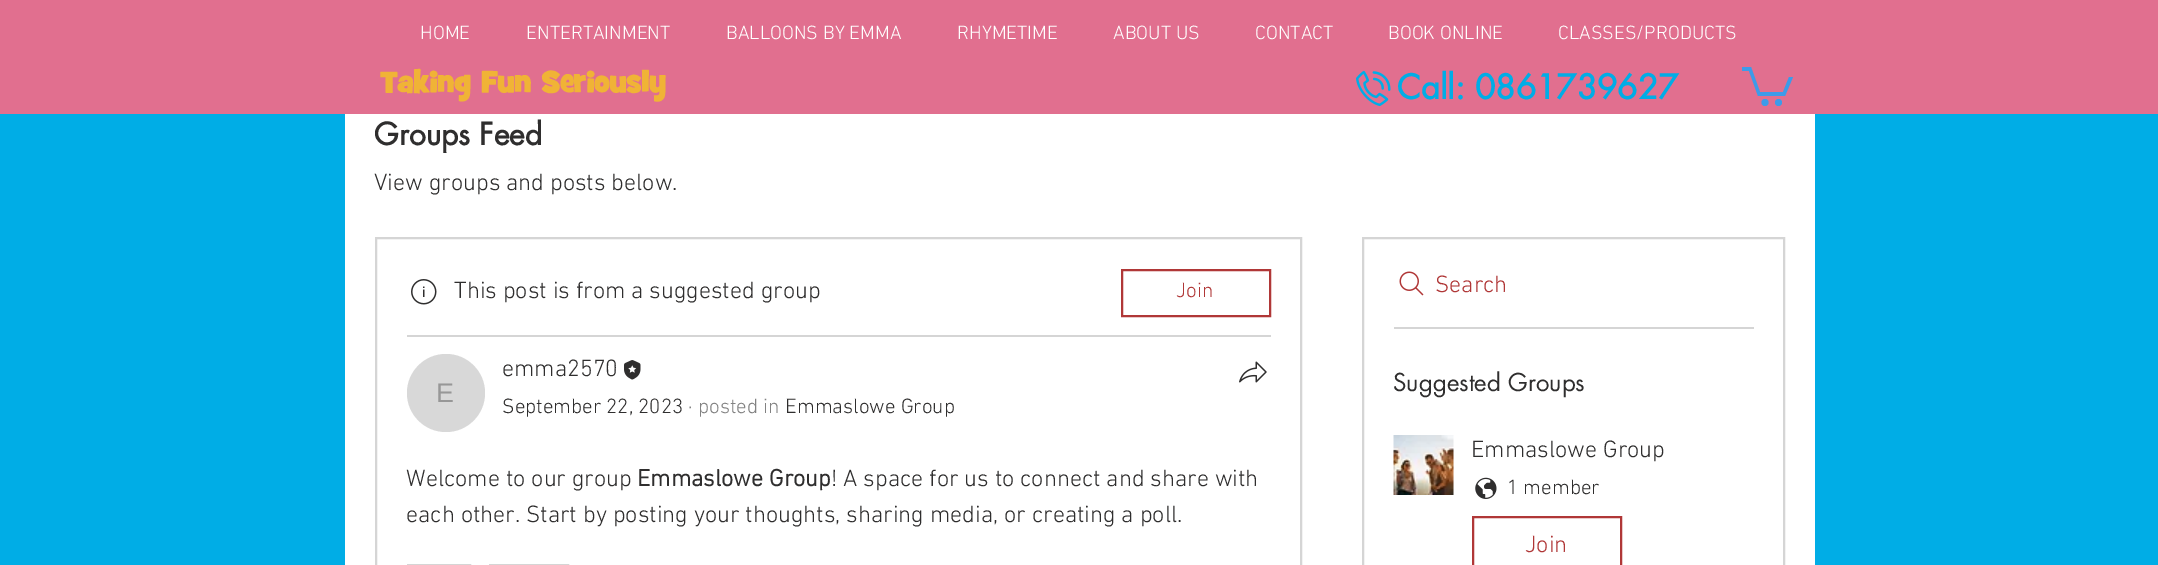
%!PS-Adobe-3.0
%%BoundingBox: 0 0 2158 565
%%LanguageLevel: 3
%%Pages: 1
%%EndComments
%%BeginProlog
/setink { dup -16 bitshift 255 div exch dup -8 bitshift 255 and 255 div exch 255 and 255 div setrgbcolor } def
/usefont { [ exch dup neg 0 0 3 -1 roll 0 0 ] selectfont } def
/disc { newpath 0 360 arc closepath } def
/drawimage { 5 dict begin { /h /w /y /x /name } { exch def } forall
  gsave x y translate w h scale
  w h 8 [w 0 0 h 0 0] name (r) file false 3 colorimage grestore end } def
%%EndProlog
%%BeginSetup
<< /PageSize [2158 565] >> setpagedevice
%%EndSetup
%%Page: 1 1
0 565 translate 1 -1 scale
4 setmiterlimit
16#00ADE6 setink
0 0 2158 565 rectfill
16#E16F8F setink
0 0 2158 114 rectfill
/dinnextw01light-Light 19.5 usefont
16#FFFFFF setink
[
    [(HOME) 420 39]
    [(ENTERTAINMENT) 526 39]
    [(BALLOONS BY EMMA) 726 39]
    [(RHYMETIME) 957 39]
    [(ABOUT US) 1113 39]
    [(CONTACT) 1255 39]
    [(BOOK ONLINE) 1388 39]
    [(CLASSES/PRODUCTS) 1558 39]
] { aload pop moveto show } forall
/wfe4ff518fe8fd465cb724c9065-Bold 30 usefont
16#F0B336 setink
380 92 moveto (Taking Fun Seriously) show
(img1.raw) 1356 70 35 37 drawimage
/futura-Bold 33 usefont
16#00ADE6 setink
1397 99 moveto (Call: 0861739627) show
16#3D9BE9 setink
1793 77 moveto 1785 96 lineto 1758 96 lineto 1749 71 lineto 1742 71 lineto 1742 67 lineto 1751 67 lineto 1760 92 lineto 1783 92 lineto 1789 77 lineto fill
1778.5 102.5 3.5 disc fill
1765 102.5 3.5 disc fill
16#FFFFFF setink
345 114 1470 451 rectfill
/futura-Bold 30 usefont
16#2F2E2E setink
374 145 moveto (Groups Feed) show
/dinnextw01light-Light 24 usefont
374 190 moveto (View groups and posts below.) show
16#D5D5D5 setink
2 setlinewidth
376 238 925 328 rectstroke
(img2.raw) 411 279 26 26 drawimage
16#2F2E2E setink
454 298 moveto (This post is from a suggested group) show
16#B03737 setink
1122 270 148 46 rectstroke
/dinnextw01light-Light 21 usefont
1176 297 moveto (Join) show
16#D5D5D5 setink
407 335 864 2 rectfill
/dinnextw01light-Light 24 usefont
16#2F2E2E setink
502 376 moveto (emma2570) show
(img3.raw) 624 360 17 20 drawimage
/dinnextw01light-Light 21 usefont
502 413 moveto (September 22, 2023) show
16#828282 setink
688 413 moveto (· posted in) show
16#2F2E2E setink
785 413 moveto (Emmaslowe Group) show
(img4.raw) 1239 361 28 22 drawimage
16#D8D8D8 setink
446 393 39 disc fill
/LiberationSans-Regular 27 usefont
16#979797 setink
436 402 moveto (E) show
/dinnextw01light-Light 24 usefont
16#2F2E2E setink
406 486 moveto (Welcome to our group) show
/dinnextw01light-Bold 24 usefont
637 486 moveto (Emmaslowe Group) show
/dinnextw01light-Light 24 usefont
831 486 moveto (! A space for us to connect and share with) show
406 522 moveto (each other. Start by posting your thoughts, sharing media, or creating a poll.) show
16#D5D5D5 setink
408 565 62 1 rectstroke
490 565 78 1 rectstroke
1363 238 421 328 rectstroke
(img5.raw) 1399 271 25 25 drawimage
16#B03737 setink
1435 292 moveto (Search) show
16#D5D5D5 setink
1394 327 360 2 rectfill
/futura-Regular 24 usefont
16#2F2E2E setink
1393 391 moveto (Suggested Groups) show
(img6.raw) 1393 435 61 60 drawimage
/dinnextw01light-Light 24 usefont
1471 457 moveto (Emmaslowe Group) show
(img7.raw) 1475 477 22 22 drawimage
/dinnextw01light-Light 21 usefont
1507 494 moveto (1 member) show
16#B03737 setink
1473 517 148 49 rectstroke
/dinnextw01light-Light 24 usefont
1525 552 moveto (Join) show
showpage
%%EOF
